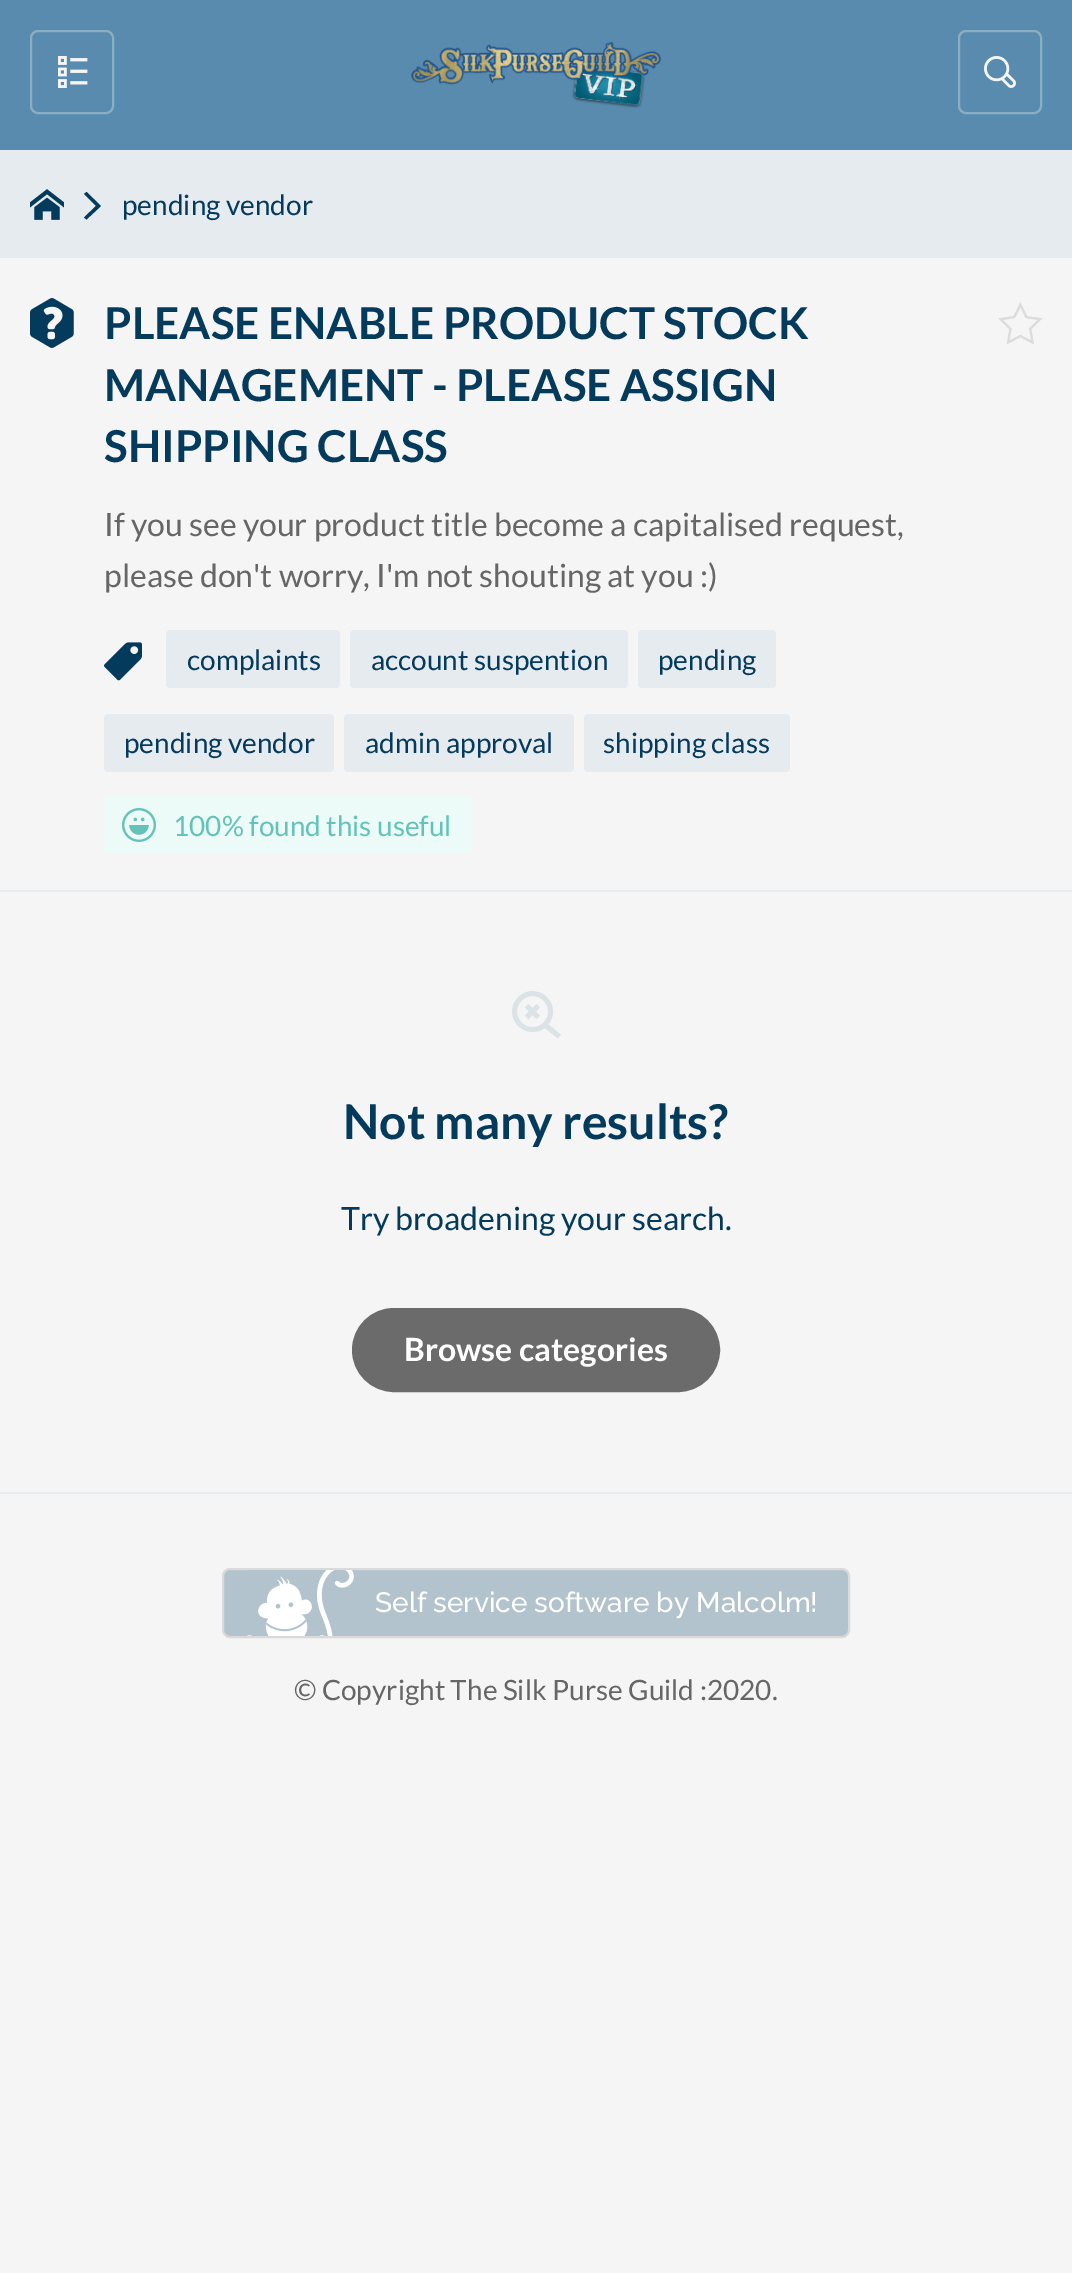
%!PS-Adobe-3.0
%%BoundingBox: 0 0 1072 2273
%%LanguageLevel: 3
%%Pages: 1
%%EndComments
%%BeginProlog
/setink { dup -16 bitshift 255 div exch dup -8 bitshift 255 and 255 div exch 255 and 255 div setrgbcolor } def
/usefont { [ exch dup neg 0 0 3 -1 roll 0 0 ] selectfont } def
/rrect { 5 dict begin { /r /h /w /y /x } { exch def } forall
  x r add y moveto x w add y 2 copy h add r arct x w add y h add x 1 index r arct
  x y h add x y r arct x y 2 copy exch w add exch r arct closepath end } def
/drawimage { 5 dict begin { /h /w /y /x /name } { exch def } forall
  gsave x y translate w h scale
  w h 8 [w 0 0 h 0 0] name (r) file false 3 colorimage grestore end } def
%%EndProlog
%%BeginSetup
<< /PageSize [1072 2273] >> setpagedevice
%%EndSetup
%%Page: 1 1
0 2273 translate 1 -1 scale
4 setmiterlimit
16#F5F5F5 setink
0 0 1072 2273 rectfill
16#588BAE setink
0 0 1072 150 rectfill
16#8CAEC5 setink
2 setlinewidth
31 31 82 82 7 rrect stroke
(img1.raw) 58 56 30 32 drawimage
(img2.raw) 411 41 250 67 drawimage
959 31 82 82 7 rrect stroke
(img3.raw) 984 56 32 32 drawimage
16#E5EBEE setink
0 150 1072 108 rectfill
(img4.raw) 30 189 34 31 drawimage
16#043A5C setink
84 194 moveto 96 206 lineto 84 217.5 lineto 86.5 219.5 lineto 101 206 lineto 86.5 192 lineto closepath fill
/Lato-Regular 28 usefont
122 215 moveto (pending vendor) show
(img5.raw) 30 298 44 50 drawimage
/Lato-Bold 44 usefont
[
    [(PLEASE ENABLE PRODUCT STOCK) 104 339]
    [(MANAGEMENT - PLEASE ASSIGN) 104 401]
    [(SHIPPING CLASS) 104 462]
] { aload pop moveto show } forall
/Lato-Regular 32 usefont
16#666666 setink
104 536 moveto (If you see your product title become a capitalised request,) show
104 587 moveto (please don't worry, I'm not shouting at you :\)) show
(img6.raw) 104 642 38 39 drawimage
16#E5EBEE setink
166 630 174 58 4 rrect fill
/Lato-Regular 28 usefont
16#043A5C setink
187 670 moveto (complaints) show
16#E5EBEE setink
350 630 278 58 4 rrect fill
16#043A5C setink
371 670 moveto (account suspention) show
16#E5EBEE setink
638 630 138 58 4 rrect fill
16#043A5C setink
658 670 moveto (pending) show
16#E5EBEE setink
104 714 230 58 4 rrect fill
16#043A5C setink
124 753 moveto (pending vendor) show
16#E5EBEE setink
344 714 230 58 4 rrect fill
16#043A5C setink
365 753 moveto (admin approval) show
16#E5EBEE setink
584 714 206 58 4 rrect fill
16#043A5C setink
603 753 moveto (shipping class) show
16#ECFAF8 setink
104 796 368 58 4 rrect fill
(img7.raw) 122 808 34 34 drawimage
16#63C3B9 setink
173 836 moveto (100% found this useful) show
(img8.raw) 998 302 45 43 drawimage
16#E5EBEE setink
0 890 1072 2 rectfill
(img9.raw) 512 991 49 48 drawimage
/Lato-Bold 48 usefont
16#043A5C setink
343 1139 moveto (Not many results?) show
/Lato-Regular 32 usefont
341 1230 moveto (Try broadening your search.) show
16#6B6B6B setink
353 1309 366 82 41 rrect gsave fill grestore
stroke
/Lato-Bold 32 usefont
16#FFFFFF setink
404 1361 moveto (Browse categories) show
16#E5EBEE setink
0 1492 1072 2 rectfill
16#B2C3CD setink
223 1569 626 68 7 rrect gsave fill grestore
16#DADADA setink
stroke
(img10.raw) 247 1570 107 66 drawimage
/Raleway-Medium 28 usefont
16#FFFFFF setink
375 1612 moveto (Self service software by Malcolm!) show
/Lato-Regular 28 usefont
16#666666 setink
294 1700 moveto (© Copyright The Silk Purse Guild :2020.) show
showpage
%%EOF
